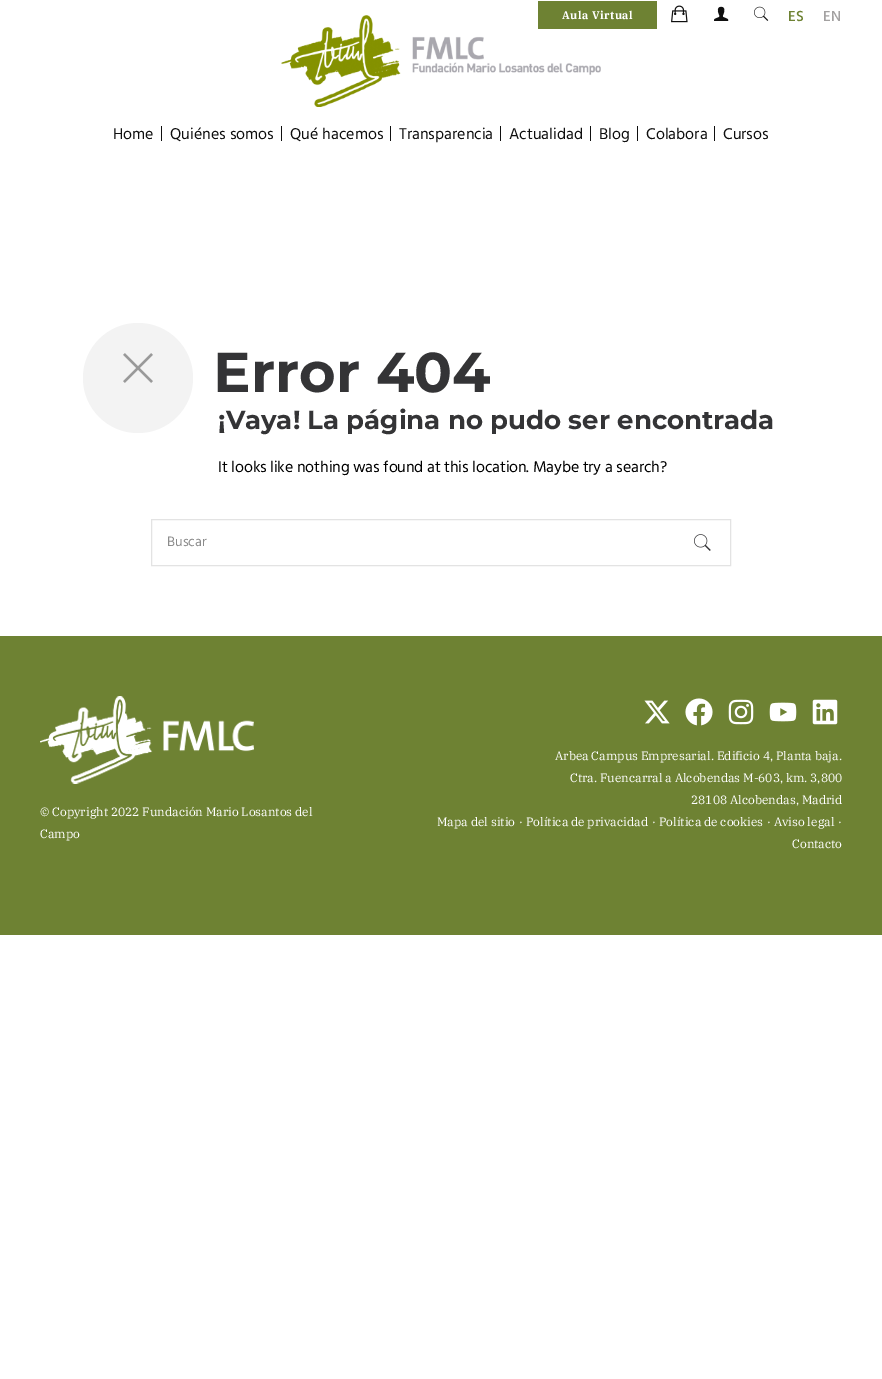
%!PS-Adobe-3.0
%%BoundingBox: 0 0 882 1379
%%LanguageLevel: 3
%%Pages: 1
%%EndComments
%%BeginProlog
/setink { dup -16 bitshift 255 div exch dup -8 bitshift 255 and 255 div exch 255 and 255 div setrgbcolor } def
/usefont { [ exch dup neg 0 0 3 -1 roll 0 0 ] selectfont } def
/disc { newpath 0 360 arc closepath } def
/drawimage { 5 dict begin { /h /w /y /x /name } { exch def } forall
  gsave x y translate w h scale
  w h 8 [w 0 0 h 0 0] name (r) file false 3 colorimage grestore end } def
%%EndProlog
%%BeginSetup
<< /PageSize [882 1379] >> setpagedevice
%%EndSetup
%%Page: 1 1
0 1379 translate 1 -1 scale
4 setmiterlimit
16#FFFFFF setink
0 0 882 1379 rectfill
(img1.raw) 281 15 320 92 drawimage
16#6E8233 setink
538 1 119 28 rectfill
/IBMPlexSerif-Bold 11 usefont
16#FFFFFF setink
562 19 moveto 0.5 0 (Aula Virtual) ashow
(img2.raw) 671 5 17 18 drawimage
(img3.raw) 714 6 15 15 drawimage
(img4.raw) 754 6 15 15 drawimage
/Hind-Medium 15 usefont
16#6E8233 setink
788 21 moveto (ES) show
16#A3A1A1 setink
823 21 moveto (EN) show
/Hind-Regular 16 usefont
16#0F0F0F setink
113 139 moveto (Home) show
161 126 1 15 rectfill
170 139 moveto (Quiénes somos) show
281 126 1 15 rectfill
290 139 moveto (Qué hacemos) show
390 126 1 15 rectfill
399 139 moveto (Transparencia) show
500 126 1 15 rectfill
509 139 moveto (Actualidad) show
590 126 1 15 rectfill
599 139 moveto (Blog) show
637 126 1 15 rectfill
646 139 moveto (Colabora) show
714 126 1 15 rectfill
723 139 moveto (Cursos) show
16#F3F3F3 setink
138 378 55 disc fill
(img5.raw) 123 353 30 30 drawimage
/Montserrat-Bold 56 usefont
16#343436 setink
213 392 moveto (Error 404) show
/Montserrat-Bold 26 usefont
218 429 moveto (¡Vaya! La página no pudo ser encontrada) show
/Hind-Regular 16 usefont
16#000000 setink
218 472 moveto -0.15 0 (It looks like nothing was found at this location. Maybe try a search?) ashow
16#E3E3E3 setink
151.5 519.5 579 46 rectstroke
/Hind-Regular 14 usefont
16#8C8C8C setink
167 546 moveto (Buscar) show
(img6.raw) 694 534 17 17 drawimage
16#6E8233 setink
0 636 882 299 rectfill
(img7.raw) 40 696 214 88 drawimage
/IBMPlexSerif-Regular 12 usefont
16#FFFFFF setink
40 816 moveto (© Copyright 2022 Fundación Mario Losantos del) show
40 838 moveto (Campo) show
(img8.raw) 644 700 26 24 drawimage
(img9.raw) 685 698 28 28 drawimage
(img10.raw) 728 699 26 26 drawimage
(img11.raw) 769 702 28 20 drawimage
(img12.raw) 812 699 26 26 drawimage
[
    [(Arbea Campus Empresarial. Edificio 4, Planta baja.) 555 760]
    [(Ctra. Fuencarral a Alcobendas M-603, km. 3,800) 570 782]
    [(28108 Alcobendas, Madrid) 691 804]
    [(Mapa del sitio) 437 826]
    [(· Política de privacidad) 519 826]
    [(· Política de cookies) 652 826]
    [(· Aviso legal) 767 826]
    [(·) 838 826]
    [(Contacto) 792 848]
] { aload pop moveto show } forall
showpage
%%EOF
